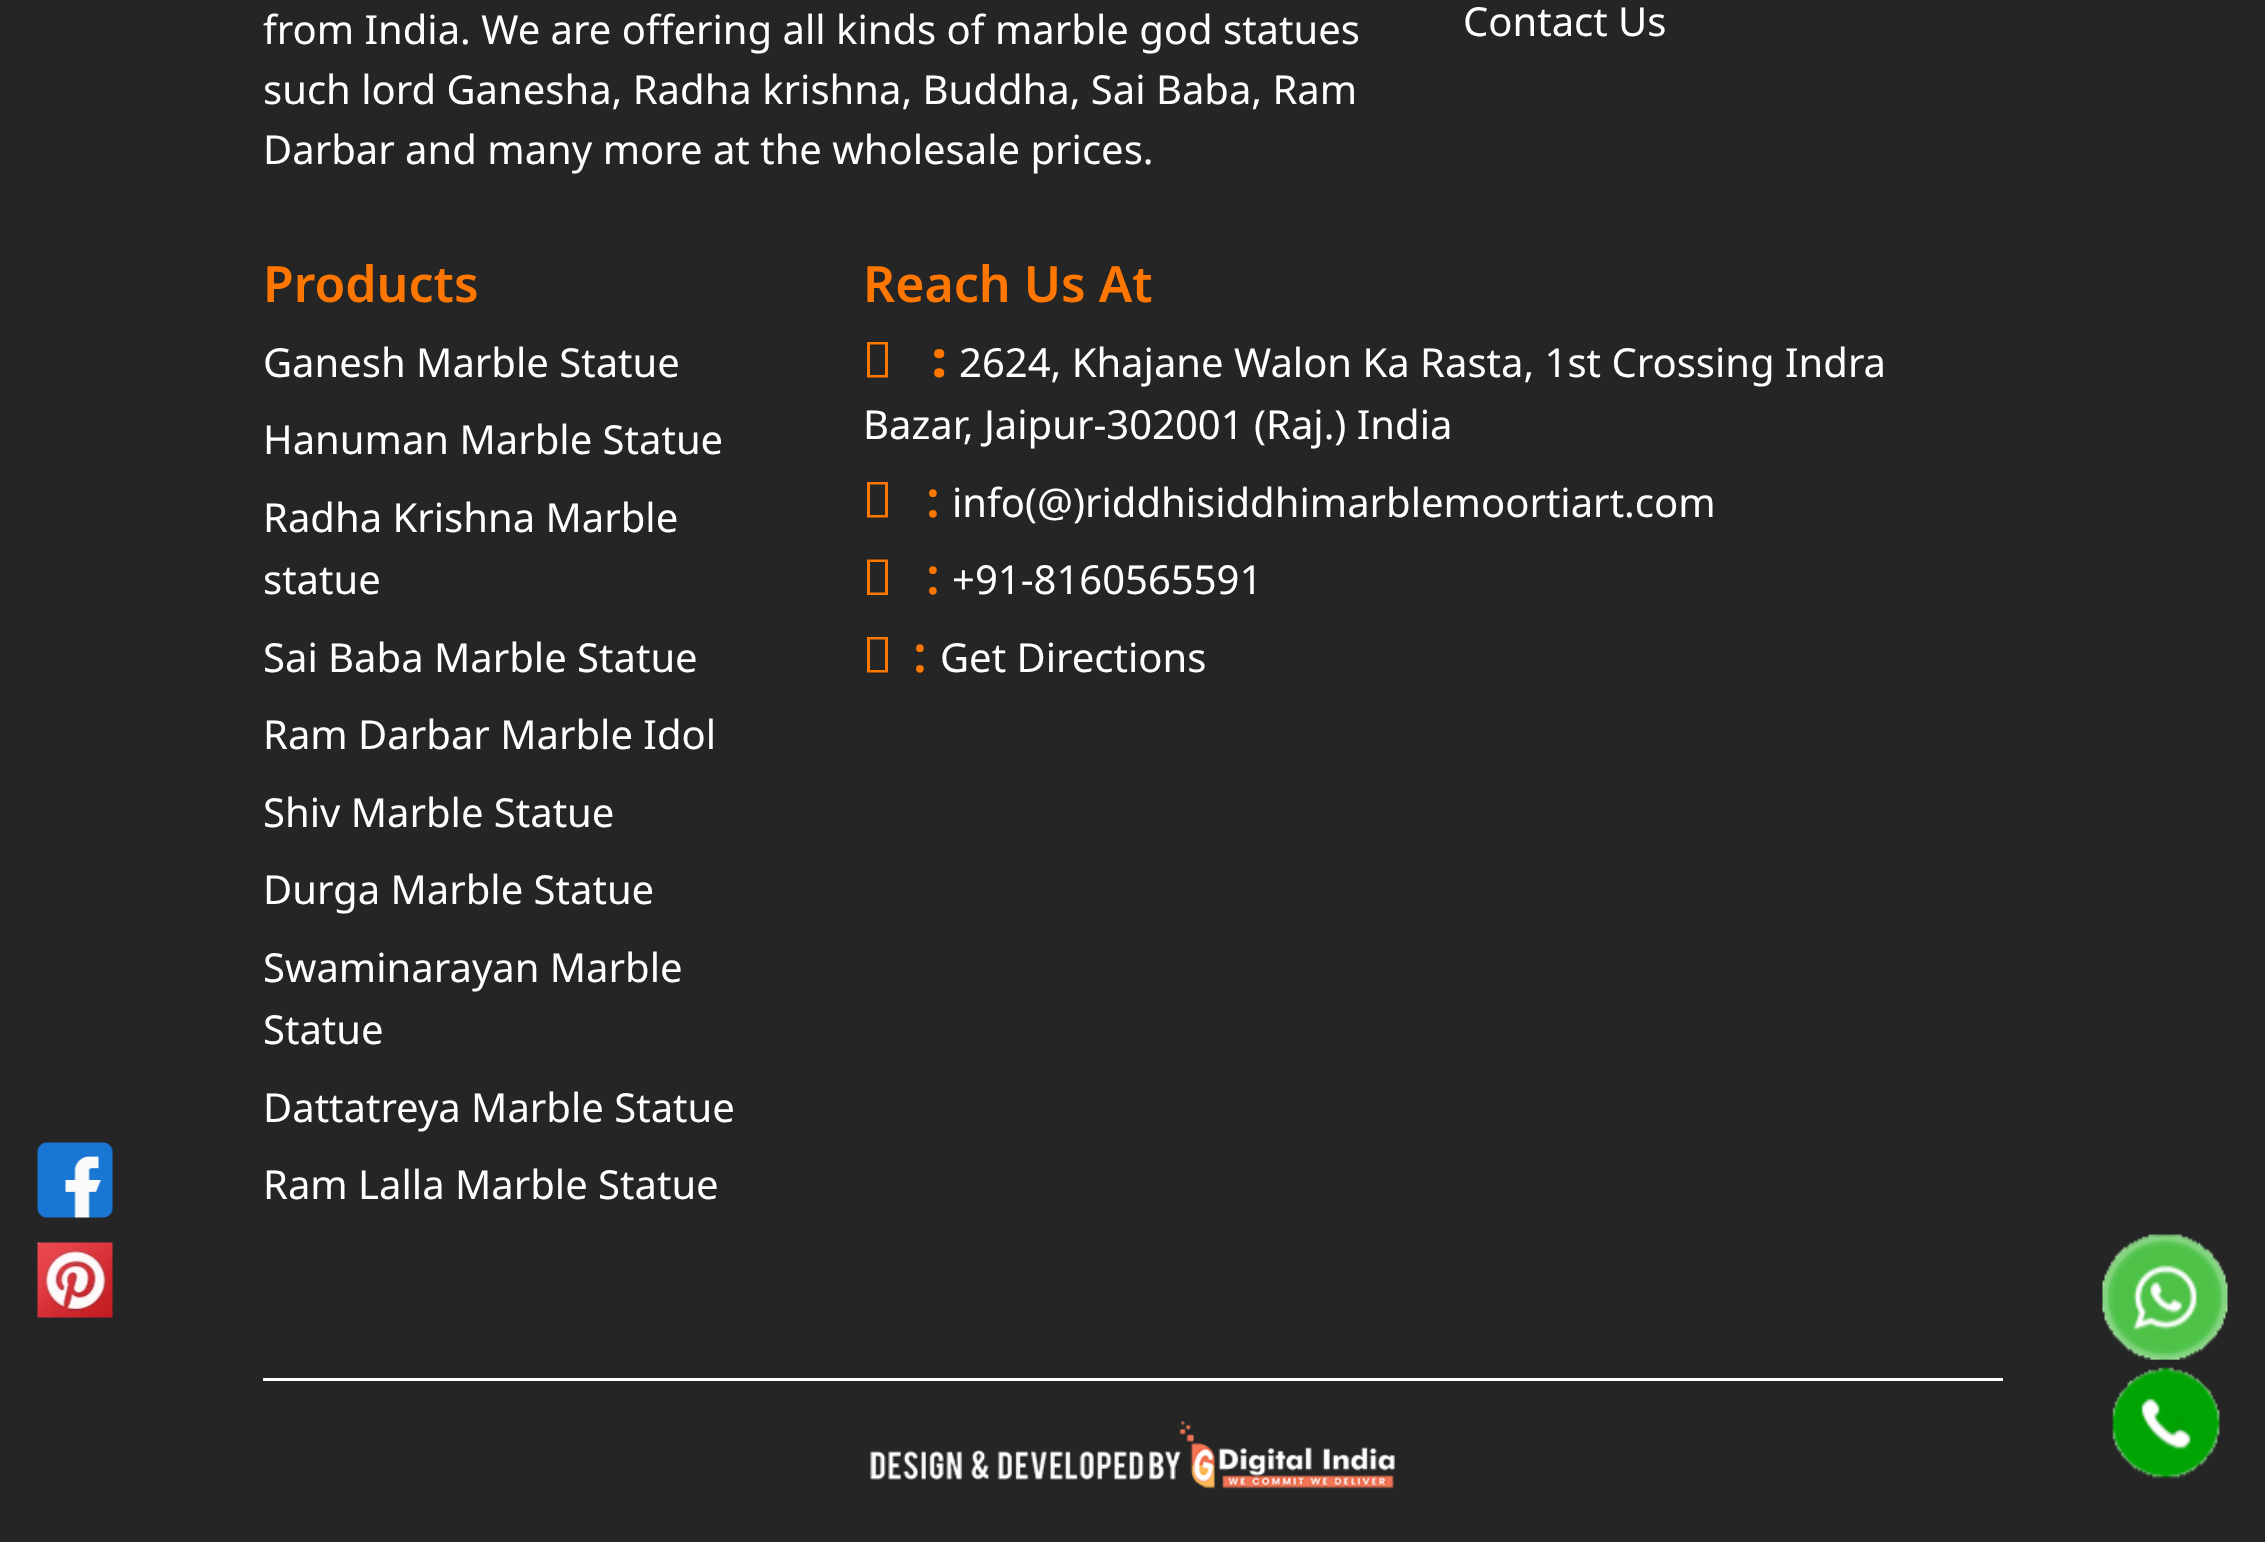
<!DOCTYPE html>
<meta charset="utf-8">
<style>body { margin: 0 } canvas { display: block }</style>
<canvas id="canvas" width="2265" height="1542"></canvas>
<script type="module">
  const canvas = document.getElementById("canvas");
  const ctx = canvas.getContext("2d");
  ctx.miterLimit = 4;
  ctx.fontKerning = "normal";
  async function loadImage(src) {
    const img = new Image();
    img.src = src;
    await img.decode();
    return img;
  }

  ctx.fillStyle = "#252525";
  ctx.fillRect(0, 0, 2265, 1542);
  ctx.font = "40px Noto Sans";
  ctx.fillStyle = "#ffffff";
  ctx.fillText("from India. We are offering all kinds of marble god statues", 263, 44);
  ctx.fillText("such lord Ganesha, Radha krishna, Buddha, Sai Baba, Ram", 263, 104);
  ctx.fillText("Darbar and many more at the wholesale prices.", 263, 164);
  ctx.fillText("Contact Us", 1463, 36);
  ctx.font = "600 50px Noto Sans";
  ctx.fillStyle = "#ff7701";
  ctx.fillText("Products", 263, 302);
  ctx.font = "40px Noto Sans";
  ctx.fillStyle = "#ffffff";
  ctx.fillText("Ganesh Marble Statue", 263, 377);
  ctx.fillText("Hanuman Marble Statue", 263, 454);
  ctx.fillText("Radha Krishna Marble", 263, 532);
  ctx.fillText("statue", 263, 594);
  ctx.fillText("Sai Baba Marble Statue", 263, 672);
  ctx.fillText("Ram Darbar Marble Idol", 263, 749);
  ctx.fillText("Shiv Marble Statue", 263, 827);
  ctx.fillText("Durga Marble Statue", 263, 904);
  ctx.fillText("Swaminarayan Marble", 263, 982);
  ctx.fillText("Statue", 263, 1044);
  ctx.fillText("Dattatreya Marble Statue", 263, 1122);
  ctx.fillText("Ram Lalla Marble Statue", 263, 1199);
  ctx.font = "600 50px Noto Sans";
  ctx.fillStyle = "#ff7701";
  ctx.fillText("Reach Us At", 863, 302);
  ctx.beginPath();
  ctx.moveTo(867, 377.5);
  ctx.lineTo(867, 342);
  ctx.lineTo(888, 342);
  ctx.lineTo(888, 377.5);
  ctx.closePath();
  ctx.moveTo(870, 375);
  ctx.lineTo(885, 375);
  ctx.lineTo(885, 344.5);
  ctx.lineTo(870, 344.5);
  ctx.closePath();
  ctx.fill();
  ctx.font = "900 50px Noto Sans";
  ctx.fillText(":", 932, 377);
  ctx.font = "40px Noto Sans";
  ctx.fillStyle = "#ffffff";
  ctx.fillText("2624, Khajane Walon Ka Rasta, 1st Crossing Indra", 959, 377);
  ctx.fillText("Bazar, Jaipur-302001 (Raj.) India", 863, 439);
  ctx.fillStyle = "#ff7701";
  ctx.beginPath();
  ctx.moveTo(867, 517.5);
  ctx.lineTo(867, 482);
  ctx.lineTo(888, 482);
  ctx.lineTo(888, 517.5);
  ctx.closePath();
  ctx.moveTo(870, 515);
  ctx.lineTo(885, 515);
  ctx.lineTo(885, 484.5);
  ctx.lineTo(870, 484.5);
  ctx.closePath();
  ctx.fill();
  ctx.font = "600 50px Noto Sans";
  ctx.fillText(":", 926, 517);
  ctx.font = "40px Noto Sans";
  ctx.fillStyle = "#ffffff";
  ctx.fillText("info(@)riddhisiddhimarblemoortiart.com", 952, 517);
  ctx.fillStyle = "#ff7701";
  ctx.beginPath();
  ctx.moveTo(867, 595);
  ctx.lineTo(867, 559.5);
  ctx.lineTo(888, 559.5);
  ctx.lineTo(888, 595);
  ctx.closePath();
  ctx.moveTo(870, 592.5);
  ctx.lineTo(885, 592.5);
  ctx.lineTo(885, 562);
  ctx.lineTo(870, 562);
  ctx.closePath();
  ctx.fill();
  ctx.font = "600 50px Noto Sans";
  ctx.fillText(":", 926, 594);
  ctx.font = "40px Noto Sans";
  ctx.fillStyle = "#ffffff";
  ctx.fillText("+91-8160565591", 952, 594);
  ctx.fillStyle = "#ff7701";
  ctx.beginPath();
  ctx.moveTo(867, 672.5);
  ctx.lineTo(867, 637);
  ctx.lineTo(888, 637);
  ctx.lineTo(888, 672.5);
  ctx.closePath();
  ctx.moveTo(870, 670);
  ctx.lineTo(885, 670);
  ctx.lineTo(885, 639.5);
  ctx.lineTo(870, 639.5);
  ctx.closePath();
  ctx.fill();
  ctx.font = "600 50px Noto Sans";
  ctx.fillText(":", 913, 672);
  ctx.font = "40px Noto Sans";
  ctx.fillStyle = "#ffffff";
  ctx.fillText("Get Directions", 940, 672);
  ctx.fillRect(263, 1378, 1740, 3);
  ctx.drawImage(await loadImage("img1.png"), 870, 1420, 525, 69);
  ctx.drawImage(await loadImage("img2.png"), 37, 1142, 76, 76);
  ctx.drawImage(await loadImage("img3.png"), 37, 1242, 76, 76);
  ctx.drawImage(await loadImage("img4.png"), 2102, 1234, 126, 126);
  ctx.drawImage(await loadImage("img5.png"), 2112, 1367, 108, 112);
</script>
